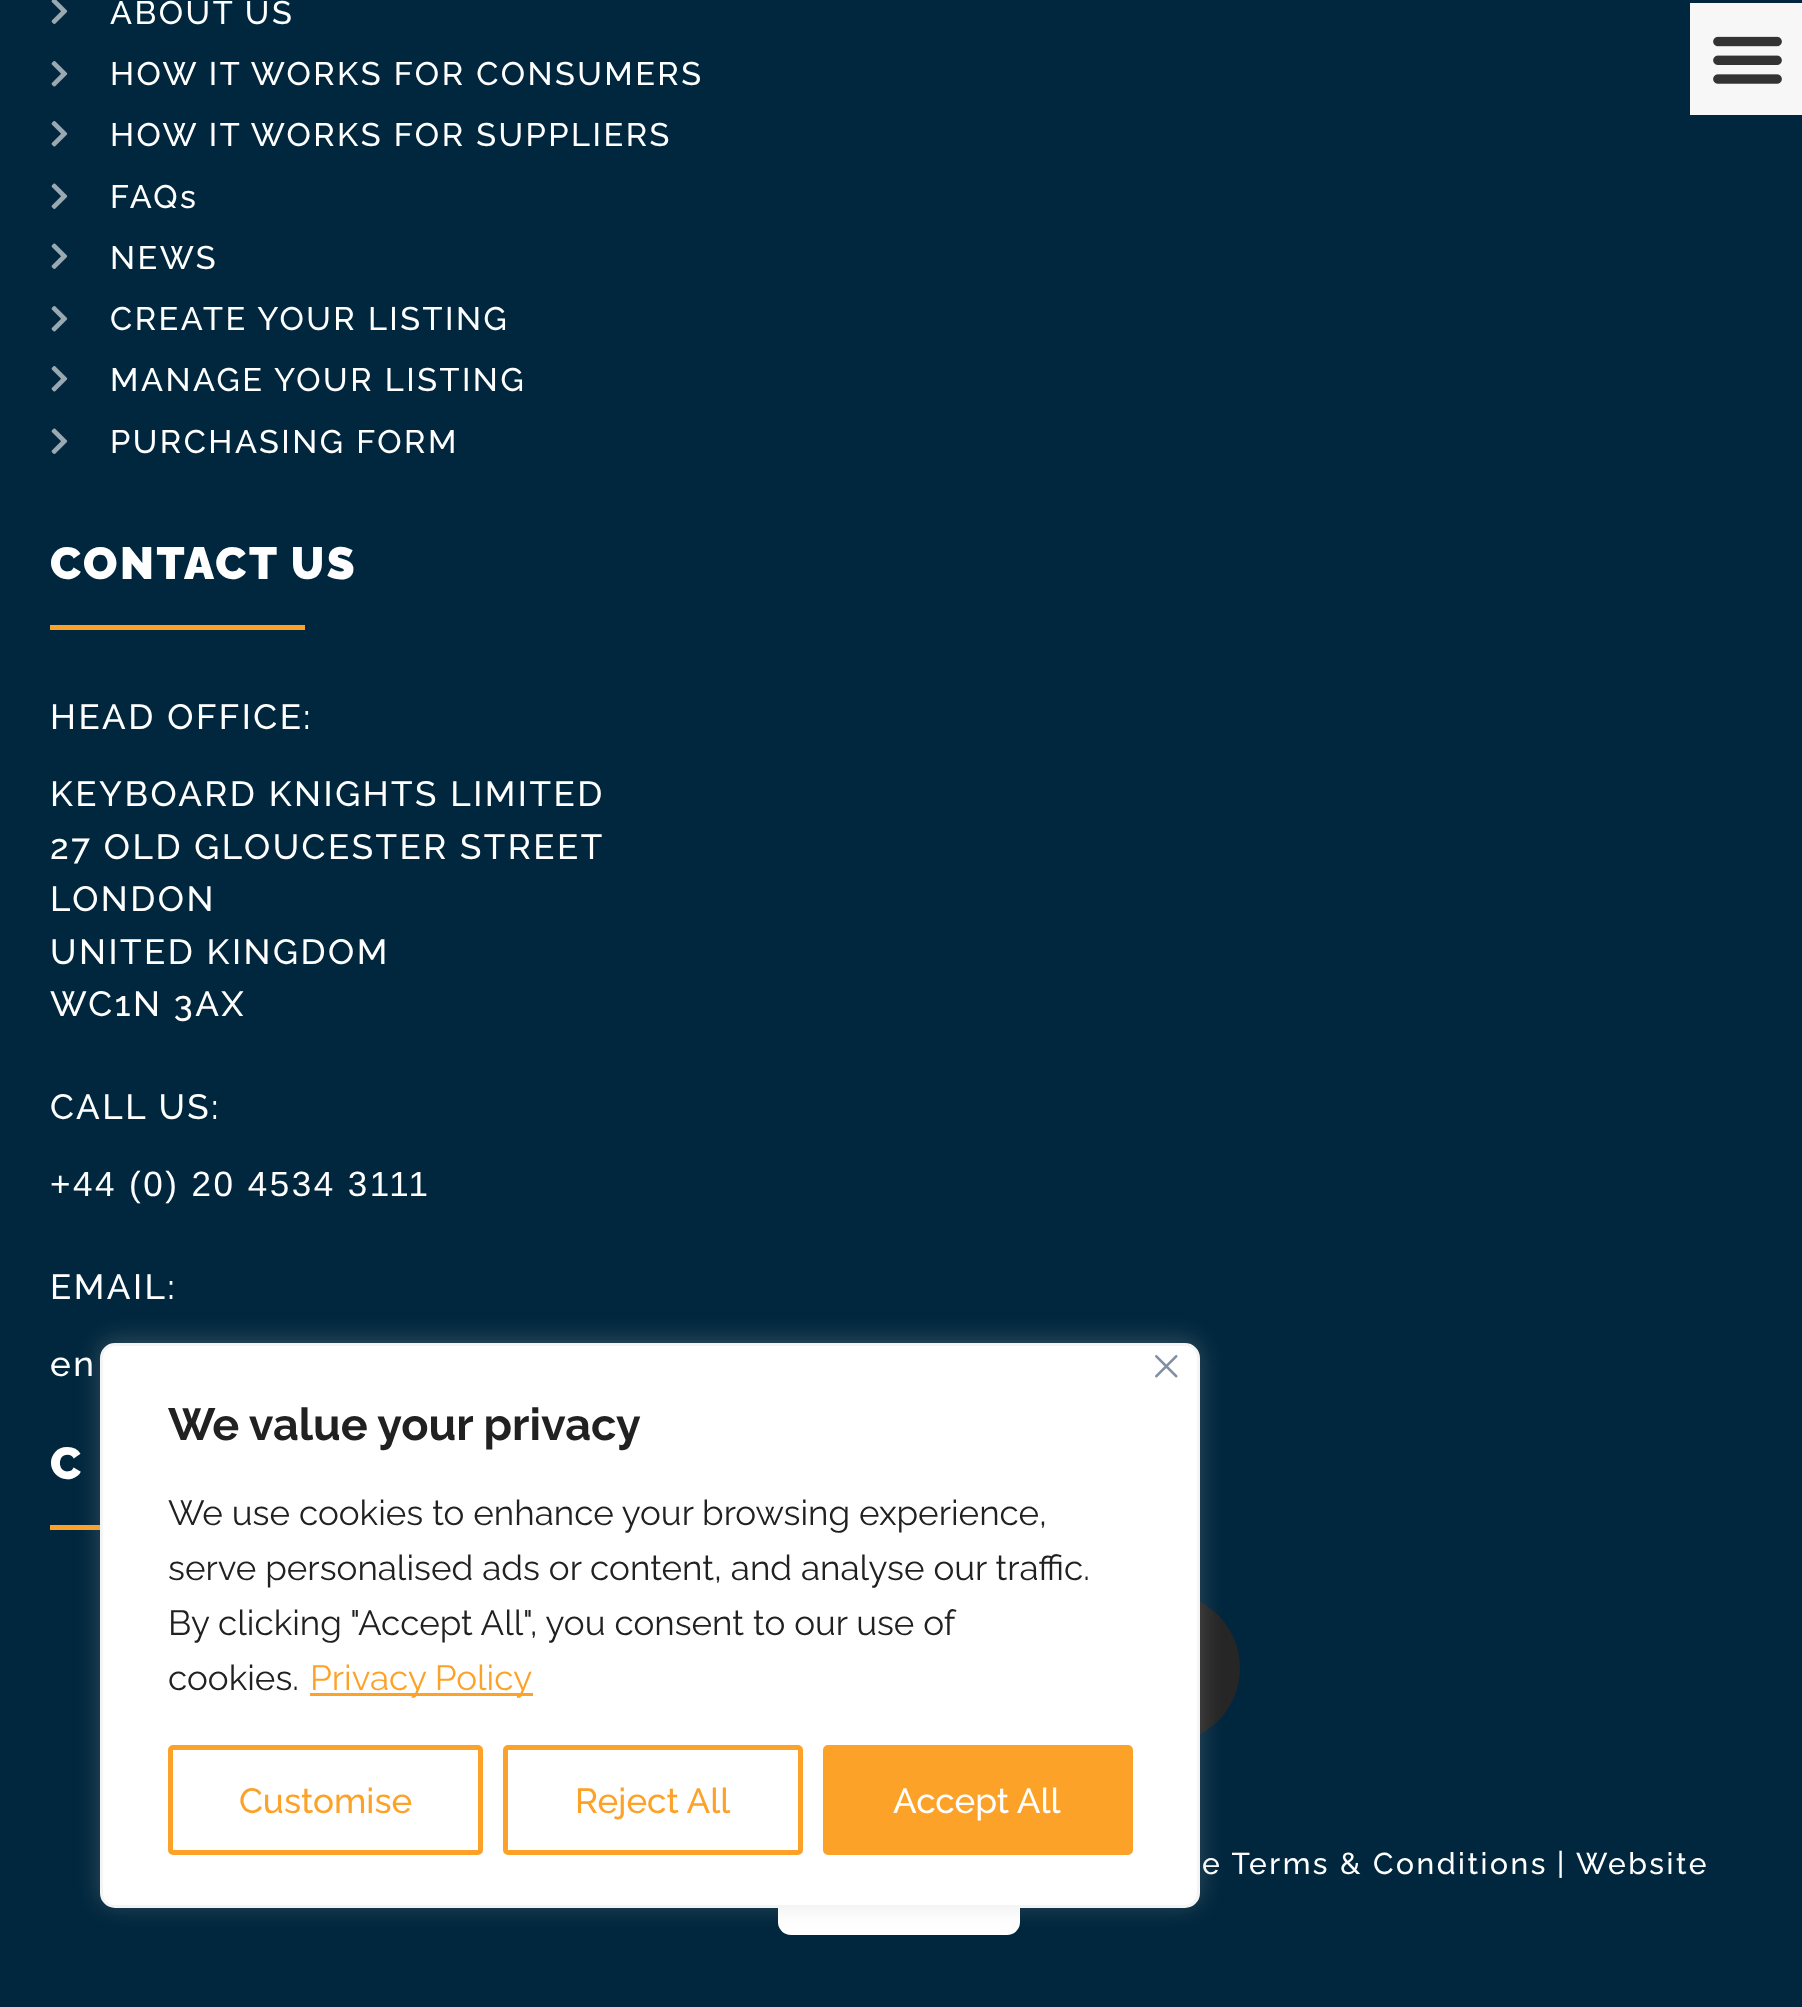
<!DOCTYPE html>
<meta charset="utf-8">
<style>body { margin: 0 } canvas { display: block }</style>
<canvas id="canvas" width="1802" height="2007"></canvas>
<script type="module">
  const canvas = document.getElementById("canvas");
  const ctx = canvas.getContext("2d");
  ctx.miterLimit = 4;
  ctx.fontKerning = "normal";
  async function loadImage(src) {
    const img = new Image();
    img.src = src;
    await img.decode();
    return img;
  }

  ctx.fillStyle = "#00273e";
  ctx.fillRect(0, 0, 1802, 2007);
  ctx.drawImage(await loadImage("img1.png"), 51, 0, 17, 24);
  ctx.letterSpacing = "2.5px";
  ctx.font = "500 32.5px Raleway";
  ctx.fillStyle = "#ffffff";
  ctx.fillText("ABOUT US", 110, 24);
  ctx.drawImage(await loadImage("img2.png"), 51, 61, 17, 26);
  ctx.fillText("HOW IT WORKS FOR CONSUMERS", 110, 85);
  ctx.drawImage(await loadImage("img2.png"), 51, 121, 17, 26);
  ctx.fillText("HOW IT WORKS FOR SUPPLIERS", 110, 146);
  ctx.drawImage(await loadImage("img3.png"), 51, 183, 17, 26);
  ctx.fillText("FAQs", 110, 208);
  ctx.drawImage(await loadImage("img3.png"), 51, 243, 17, 26);
  ctx.fillText("NEWS", 110, 269);
  ctx.drawImage(await loadImage("img2.png"), 51, 306, 17, 26);
  ctx.fillText("CREATE YOUR LISTING", 110, 330);
  ctx.drawImage(await loadImage("img2.png"), 51, 366, 17, 26);
  ctx.fillText("MANAGE YOUR LISTING", 110, 391);
  ctx.drawImage(await loadImage("img3.png"), 51, 428, 17, 26);
  ctx.fillText("PURCHASING FORM", 110, 453);
  ctx.font = "900 45px Raleway";
  ctx.fillText("CONTACT US", 50, 579);
  ctx.fillStyle = "#fda229";
  ctx.fillRect(50, 625, 255, 5);
  ctx.font = "500 35px Raleway";
  ctx.fillStyle = "#ffffff";
  ctx.fillText("HEAD OFFICE:", 50, 729);
  ctx.fillText("KEYBOARD KNIGHTS LIMITED", 50, 806);
  ctx.fillText("27 OLD GLOUCESTER STREET", 50, 859);
  ctx.fillText("LONDON", 50, 911);
  ctx.fillText("UNITED KINGDOM", 50, 964);
  ctx.fillText("WC1N 3AX", 50, 1016);
  ctx.fillText("CALL US:", 50, 1119);
  ctx.font = "35px Liberation Sans";
  ctx.fillText("+44 (0) 20 4534 3111", 50, 1196);
  ctx.font = "500 35px Raleway";
  ctx.fillText("EMAIL:", 50, 1299);
  ctx.fillText("en", 50, 1376);
  ctx.font = "900 45px Raleway";
  ctx.fillText("C", 50, 1479);
  ctx.fillStyle = "#fda229";
  ctx.fillRect(50, 1525, 50, 5);
  ctx.fillStyle = "#262626";
  ctx.beginPath();
  ctx.arc(1165, 1668, 75, 0, Math.PI * 2);
  ctx.fill();
  ctx.font = "500 30px Raleway";
  ctx.fillStyle = "#ffffff";
  ctx.fillText("e Terms & Conditions", 1202, 1874);
  ctx.fillText("|", 1557, 1874);
  ctx.fillText("Website", 1576, 1874);
  ctx.beginPath();
  ctx.roundRect(778, 1835, 242, 100, 13);
  ctx.fill();
  ctx.fillStyle = "rgba(172, 171, 171, 0.3)";
  ctx.filter = "blur(12.5px)";
  ctx.beginPath();
  ctx.roundRect(100, 1340, 1100, 565, 15);
  ctx.fill();
  ctx.filter = "none";
  ctx.fillStyle = "#ffffff";
  ctx.beginPath();
  ctx.roundRect(101.5, 1344.5, 1097, 562, 13.5);
  ctx.fill();
  ctx.strokeStyle = "#f4f4f4";
  ctx.lineWidth = 3;
  ctx.stroke();
  ctx.drawImage(await loadImage("img4.png"), 1155, 1355, 23, 23);
  ctx.letterSpacing = "0px";
  ctx.font = "bold 45px Raleway";
  ctx.fillStyle = "#212121";
  ctx.fillText("We value your privacy", 168, 1440);
  ctx.font = "35px Raleway";
  ctx.fillText("We use cookies to enhance your browsing experience,", 168, 1525);
  ctx.fillText("serve personalised ads or content, and analyse our traffic.", 168, 1580);
  ctx.fillText("By clicking \"Accept All\", you consent to our use of", 168, 1635);
  ctx.fillText("cookies.", 168, 1690);
  ctx.fillStyle = "#fda229";
  ctx.fillRect(310, 1693, 223, 3);
  ctx.fillText("Privacy Policy", 310, 1690);
  ctx.beginPath();
  ctx.roundRect(170.5, 1747.5, 310, 105, 2.5);
  ctx.strokeStyle = "#fda229";
  ctx.lineWidth = 5;
  ctx.stroke();
  ctx.font = "500 35px Raleway";
  ctx.fillText("Customise", 239, 1813);
  ctx.beginPath();
  ctx.roundRect(505.5, 1747.5, 295, 105, 2.5);
  ctx.stroke();
  ctx.fillText("Reject All", 575, 1813);
  ctx.beginPath();
  ctx.roundRect(825.5, 1747.5, 305, 105, 2.5);
  ctx.fill();
  ctx.stroke();
  ctx.fillStyle = "#ffffff";
  ctx.fillText("Accept All", 893, 1813);
  ctx.fillStyle = "#f7f7f7";
  ctx.fillRect(1690, 3, 112, 112);
  ctx.drawImage(await loadImage("img5.png"), 1713, 36, 69, 48);
</script>
